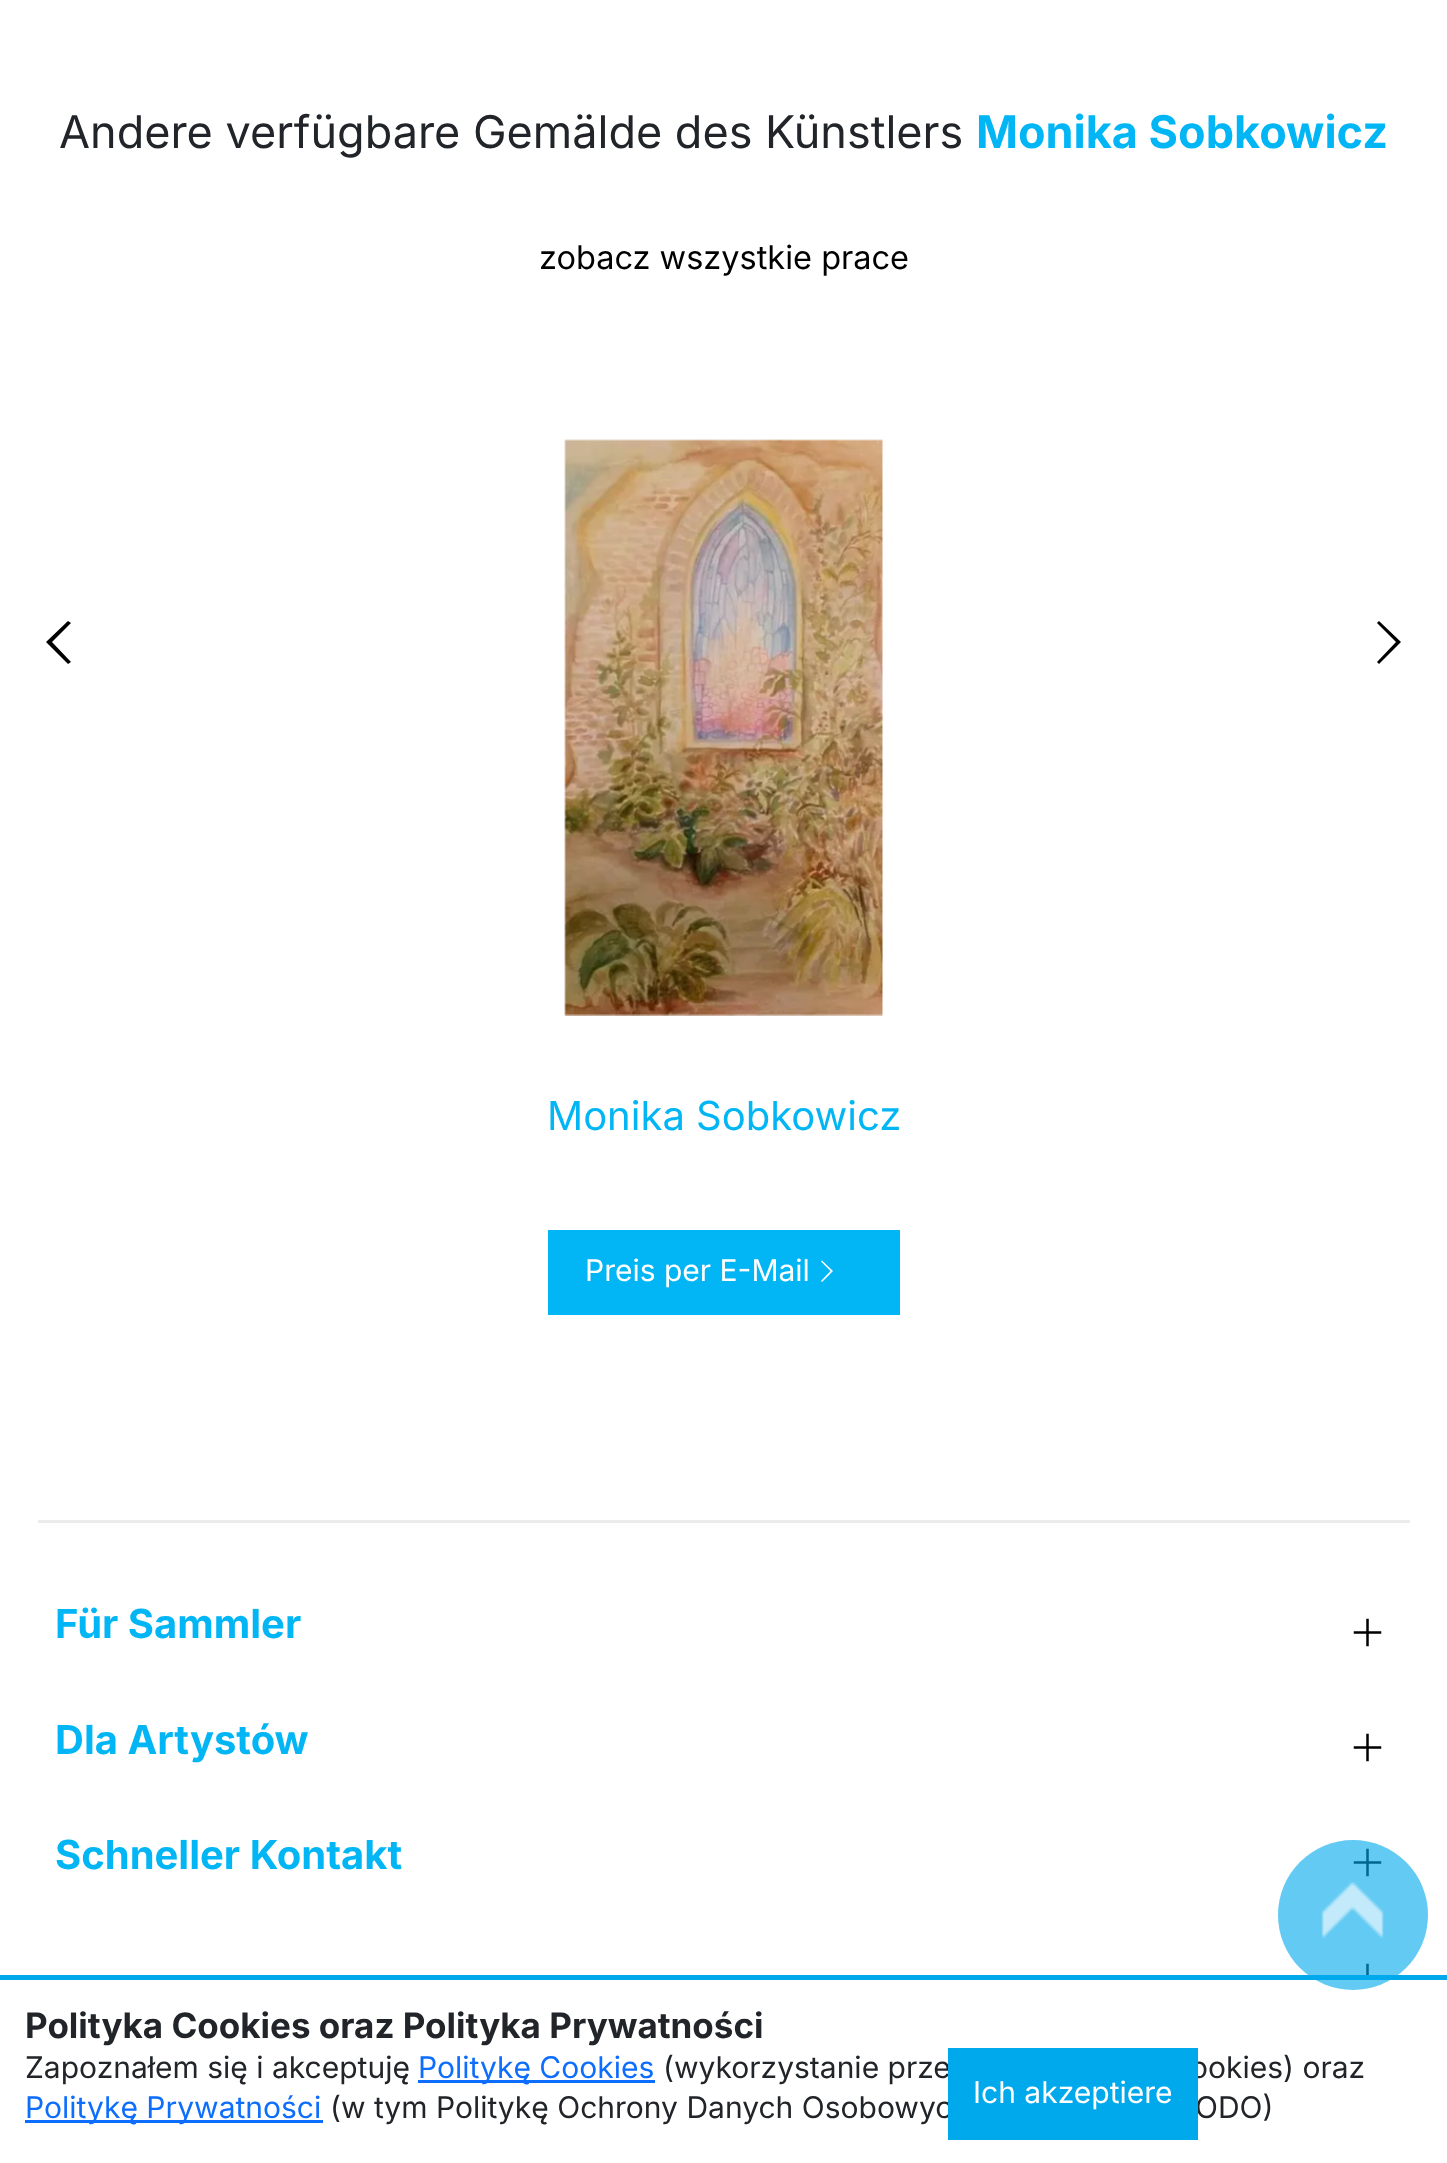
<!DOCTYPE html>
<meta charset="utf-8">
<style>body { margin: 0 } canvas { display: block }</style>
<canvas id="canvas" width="1447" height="2163"></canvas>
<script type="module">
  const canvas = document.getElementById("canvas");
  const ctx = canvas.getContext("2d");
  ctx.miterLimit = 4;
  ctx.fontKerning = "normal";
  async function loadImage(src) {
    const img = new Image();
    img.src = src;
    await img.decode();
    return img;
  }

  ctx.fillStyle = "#ffffff";
  ctx.fillRect(0, 0, 1447, 2163);
  ctx.font = "45px Inter";
  ctx.fillStyle = "#212529";
  ctx.fillText("Andere verfügbare Gemälde des Künstlers", 59, 148);
  ctx.font = "bold 45px Inter";
  ctx.fillStyle = "#02b5f4";
  ctx.fillText("Monika Sobkowicz", 976, 148);
  ctx.font = "32.5px Inter";
  ctx.fillStyle = "#000000";
  ctx.fillText("zobacz wszystkie prace", 539, 269);
  ctx.beginPath();
  ctx.moveTo(68, 621);
  ctx.lineTo(46, 642);
  ctx.lineTo(68, 664);
  ctx.lineTo(71, 662);
  ctx.lineTo(52, 642);
  ctx.lineTo(71, 623);
  ctx.closePath();
  ctx.fill();
  ctx.beginPath();
  ctx.moveTo(1379, 621);
  ctx.lineTo(1377, 623);
  ctx.lineTo(1396, 642);
  ctx.lineTo(1377, 662);
  ctx.lineTo(1379, 664);
  ctx.lineTo(1401, 642);
  ctx.closePath();
  ctx.fill();
  ctx.drawImage(await loadImage("img1.png"), 564, 439, 319, 577);
  ctx.font = "40px Inter";
  ctx.fillStyle = "#02b5f4";
  ctx.fillText("Monika Sobkowicz", 547, 1130);
  ctx.fillRect(548, 1230, 352, 85);
  ctx.font = "30px Inter";
  ctx.fillStyle = "#ffffff";
  ctx.fillText("Preis per E-Mail", 585, 1281);
  ctx.beginPath();
  ctx.moveTo(822, 1260.5);
  ctx.lineTo(821, 1261.5);
  ctx.lineTo(830.5, 1271);
  ctx.lineTo(821, 1281);
  ctx.lineTo(822, 1282);
  ctx.lineTo(833, 1271);
  ctx.closePath();
  ctx.fill();
  ctx.fillStyle = "#ebebeb";
  ctx.fillRect(38, 1520, 1372, 3);
  ctx.font = "bold 40px Inter";
  ctx.fillStyle = "#02b5f4";
  ctx.fillText("Für Sammler", 55, 1638);
  ctx.drawImage(await loadImage("img2.png"), 1353, 1618, 29, 29);
  ctx.fillText("Dla Artystów", 55, 1754);
  ctx.drawImage(await loadImage("img2.png"), 1353, 1733, 29, 29);
  ctx.fillText("Schneller Kontakt", 55, 1869);
  ctx.drawImage(await loadImage("img2.png"), 1353, 1848, 29, 29);
  ctx.drawImage(await loadImage("img3.png"), 1366, 1963, 3, 12);
  ctx.fillStyle = "#00a9ec";
  ctx.fillRect(0, 1975, 1447, 5);
  ctx.fillStyle = "rgba(0, 169, 236, 0.61)";
  ctx.beginPath();
  ctx.arc(1353, 1915, 75, 0, Math.PI * 2);
  ctx.fill();
  ctx.drawImage(await loadImage("img4.png"), 1321, 1882, 63, 57);
  ctx.font = "bold 35px Inter";
  ctx.fillStyle = "#212529";
  ctx.fillText("Polityka Cookies oraz Polityka Prywatności", 25, 2038);
  ctx.font = "30px Inter";
  ctx.fillText("Zapoznałem się i akceptuję", 25, 2078);
  ctx.fillStyle = "#0d6efd";
  ctx.fillRect(418, 2080, 237, 3);
  ctx.fillText("Politykę Cookies", 418, 2078);
  ctx.fillStyle = "#212529";
  ctx.fillText("(wykorzystanie prze", 663, 2078);
  ctx.fillText("ookies) oraz", 1190, 2078);
  ctx.fillStyle = "#0d6efd";
  ctx.fillRect(25, 2120, 298, 3);
  ctx.fillText("Politykę Prywatności", 25, 2118);
  ctx.fillStyle = "#212529";
  ctx.fillText("(w tym Politykę Ochrony Danych Osobowyc", 330, 2118);
  ctx.fillText("ODO)", 1195, 2118);
  ctx.fillStyle = "#00a9ec";
  ctx.fillRect(948, 2048, 250, 92);
  ctx.fillStyle = "#ffffff";
  ctx.fillText("Ich akzeptiere", 973, 2103);
</script>
